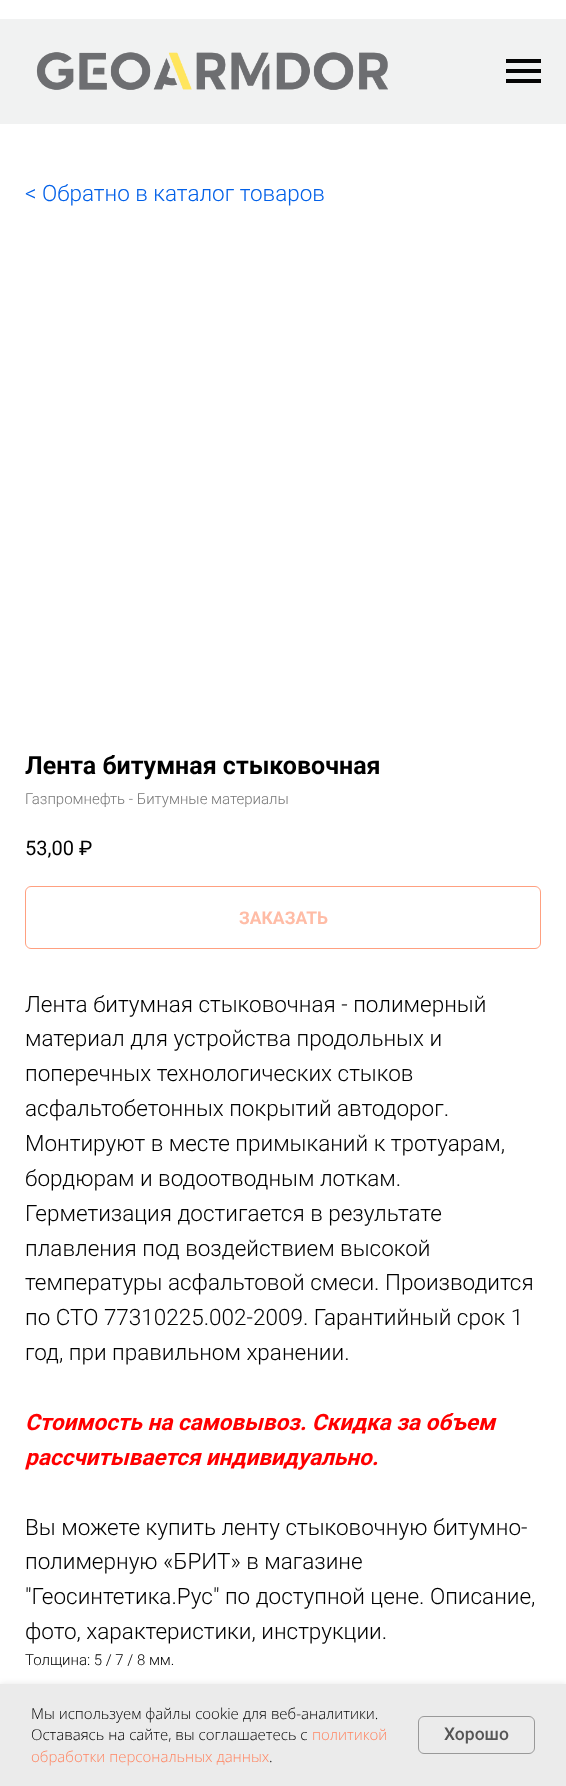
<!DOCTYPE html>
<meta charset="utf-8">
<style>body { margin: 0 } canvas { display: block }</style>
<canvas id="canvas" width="566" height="1786"></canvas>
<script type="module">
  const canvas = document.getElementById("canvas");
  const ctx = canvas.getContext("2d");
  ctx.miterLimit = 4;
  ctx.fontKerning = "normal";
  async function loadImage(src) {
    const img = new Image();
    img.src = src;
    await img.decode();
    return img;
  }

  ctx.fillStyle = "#ffffff";
  ctx.fillRect(0, 0, 566, 1786);
  ctx.fillStyle = "#f1f2f2";
  ctx.fillRect(0, 19, 566, 105);
  ctx.drawImage(await loadImage("img1.png"), 36, 52, 352, 38);
  ctx.fillStyle = "#050505";
  ctx.fillRect(506, 59, 35, 4);
  ctx.fillRect(506, 69, 35, 4);
  ctx.fillRect(506, 79, 35, 4);
  ctx.font = "300 22.5px Roboto";
  ctx.fillStyle = "#0260e8";
  ctx.fillText("< Обратно в каталог товаров", 25, 201);
  ctx.font = "bold 25px Roboto";
  ctx.fillStyle = "#000000";
  ctx.fillText("Лента битумная стыковочная", 25, 774);
  ctx.font = "300 15px Roboto";
  ctx.fillStyle = "#777777";
  ctx.fillText("Газпромнефть - Битумные материалы", 25, 804);
  ctx.font = "20px Roboto";
  ctx.fillStyle = "#000000";
  ctx.fillText("53,00", 25, 855);
  ctx.fillText("₽", 79, 855);
  ctx.beginPath();
  ctx.roundRect(25.5, 886.5, 515, 62, 5.5);
  ctx.strokeStyle = "#ffa080";
  ctx.stroke();
  ctx.font = "bold 17.5px Roboto";
  ctx.fillStyle = "#ffbca6";
  ctx.fillText("ЗАКАЗАТЬ", 239, 924);
  ctx.font = "300 22.5px Roboto";
  ctx.fillStyle = "#000000";
  ctx.fillText("Лента битумная стыковочная - полимерный", 25, 1012);
  ctx.fillText("материал для устройства продольных и", 25, 1046);
  ctx.fillText("поперечных технологических стыков", 25, 1081);
  ctx.fillText("асфальтобетонных покрытий автодорог.", 25, 1116);
  ctx.fillText("Монтируют в месте примыканий к тротуарам,", 25, 1151);
  ctx.fillText("бордюрам и водоотводным лоткам.", 25, 1186);
  ctx.fillText("Герметизация достигается в результате", 25, 1221);
  ctx.fillText("плавления под воздействием высокой", 25, 1256);
  ctx.fillText("температуры асфальтовой смеси. Производится", 25, 1290);
  ctx.fillText("по СТО 77310225.002-2009. Гарантийный срок 1", 25, 1325);
  ctx.fillText("год, при правильном хранении.", 25, 1360);
  ctx.font = "italic bold 22.5px Roboto";
  ctx.fillStyle = "#ff0000";
  ctx.fillText("Стоимость на самовывоз. Скидка за объем", 25, 1430);
  ctx.fillText("рассчитывается индивидуально.", 25, 1465);
  ctx.font = "300 22.5px Roboto";
  ctx.fillStyle = "#000000";
  ctx.fillText("Вы можете купить ленту стыковочную битумно-", 25, 1535);
  ctx.fillText("полимерную «БРИТ» в магазине", 25, 1569);
  ctx.fillText("\"Геосинтетика.Рус\" по доступной цене. Описание,", 25, 1604);
  ctx.fillText("фото, характеристики, инструкции.", 25, 1639);
  ctx.font = "300 15px Roboto";
  ctx.fillText("Толщина: 5 / 7 / 8 мм.", 25, 1665);
  ctx.fillStyle = "rgba(0, 0, 0, 0.1)";
  ctx.filter = "blur(3px)";
  ctx.beginPath();
  ctx.rect(0, 1684, 566, 102);
  ctx.fill();
  ctx.filter = "none";
  ctx.fillStyle = "#ebebeb";
  ctx.fillRect(0, 1684, 566, 102);
  ctx.font = "300 15px Open Sans";
  ctx.fillStyle = "#000000";
  ctx.fillText("Мы используем файлы cookie для веб-аналитики.", 31, 1719);
  ctx.fillText("Оставаясь на сайте, вы соглашаетесь с", 31, 1740);
  ctx.fillStyle = "#ff8562";
  ctx.fillText("политикой", 312, 1740);
  ctx.fillText("обработки персональных данных", 31, 1762);
  ctx.fillStyle = "#000000";
  ctx.fillText(".", 269, 1762);
  ctx.beginPath();
  ctx.roundRect(418.5, 1716.5, 116, 37, 5.5);
  ctx.strokeStyle = "#999999";
  ctx.stroke();
  ctx.font = "500 17.5px Roboto";
  ctx.fillStyle = "#555555";
  ctx.fillText("Хорошо", 444, 1740);
</script>
